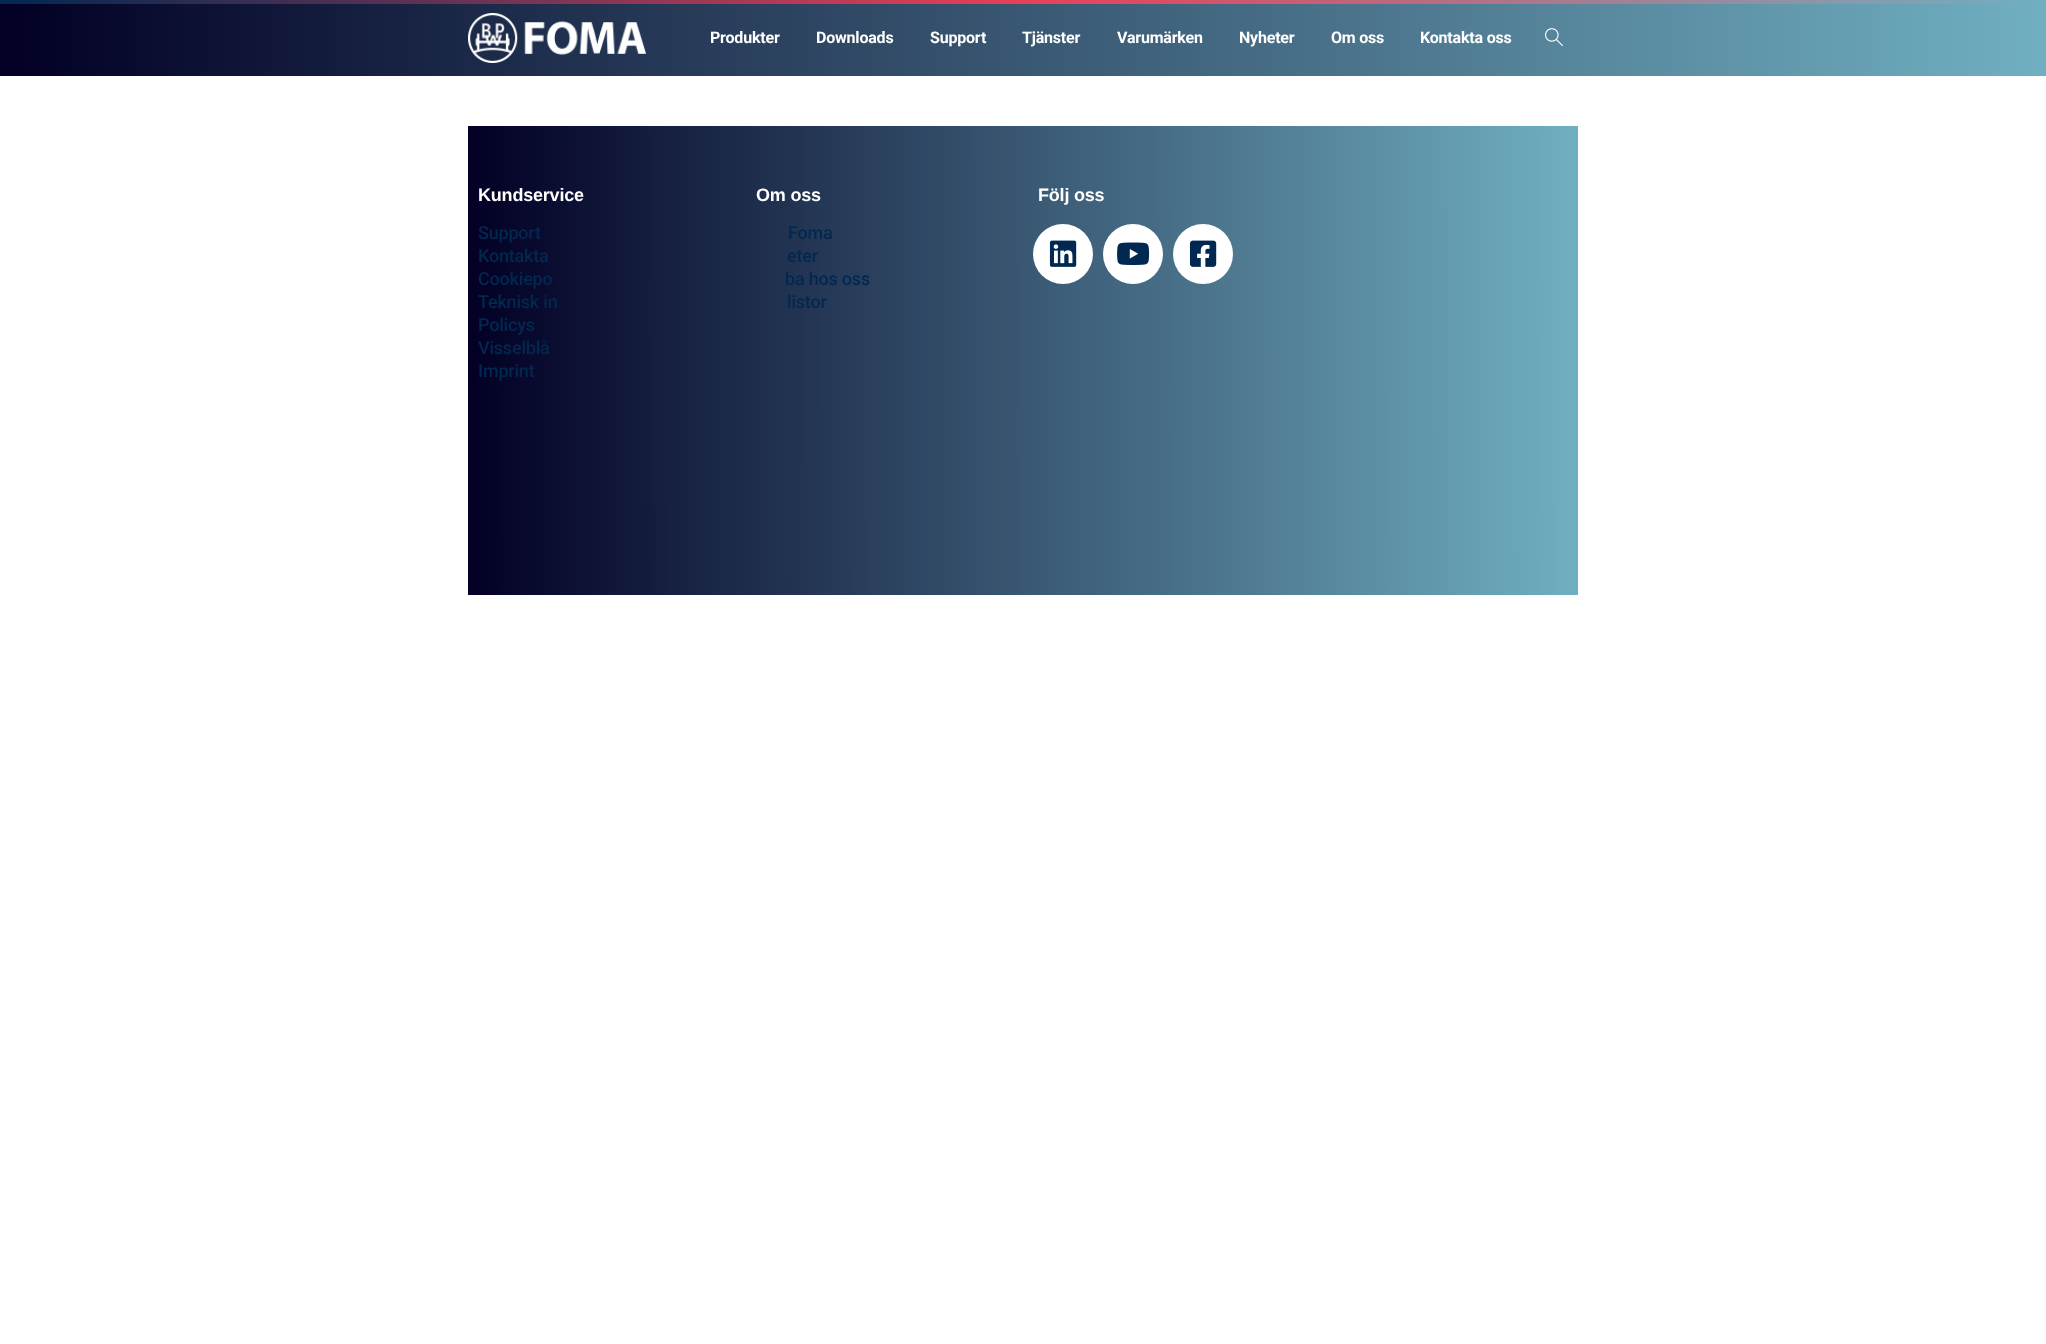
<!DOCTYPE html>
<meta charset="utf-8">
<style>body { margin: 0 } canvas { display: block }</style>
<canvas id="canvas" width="2046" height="1344"></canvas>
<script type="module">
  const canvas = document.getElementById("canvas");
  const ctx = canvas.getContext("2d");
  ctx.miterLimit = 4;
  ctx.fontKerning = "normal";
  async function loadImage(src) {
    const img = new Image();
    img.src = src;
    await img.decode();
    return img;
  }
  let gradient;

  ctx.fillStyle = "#ffffff";
  ctx.fillRect(0, 0, 2046, 1344);
  gradient = ctx.createLinearGradient(0, 2, 2046, 2);
  gradient.addColorStop(0, "#002851");
  gradient.addColorStop(0.5, "#e94057");
  gradient.addColorStop(1, "#70afc1");
  ctx.fillStyle = gradient;
  ctx.fillRect(0, 0, 2046, 4);
  gradient = ctx.createLinearGradient(0, 38, 2046, 38);
  gradient.addColorStop(0, "#020024");
  gradient.addColorStop(1, "#70afc1");
  ctx.fillStyle = gradient;
  ctx.fillRect(0, 4, 2046, 72);
  ctx.drawImage(await loadImage("img1.png"), 468, 13, 178, 50);
  ctx.letterSpacing = "-0.2px";
  ctx.font = "bold 16px Roboto";
  ctx.fillStyle = "#ffffff";
  ctx.fillText("Produkter", 710, 43);
  ctx.fillText("Downloads", 816, 43);
  ctx.fillText("Support", 930, 43);
  ctx.fillText("Tjänster", 1022, 43);
  ctx.fillText("Varumärken", 1117, 43);
  ctx.fillText("Nyheter", 1239, 43);
  ctx.fillText("Om oss", 1331, 43);
  ctx.fillText("Kontakta oss", 1420, 43);
  ctx.drawImage(await loadImage("img2.png"), 1545, 28, 18, 19);
  gradient = ctx.createLinearGradient(468, 361, 1578, 360);
  gradient.addColorStop(0, "#020024");
  gradient.addColorStop(1, "#70afc1");
  ctx.fillStyle = gradient;
  ctx.fillRect(468, 126, 1110, 469);
  ctx.font = "bold 18px Liberation Sans";
  ctx.fillStyle = "#ffffff";
  ctx.fillText("Kundservice", 478, 201);
  ctx.font = "500 18px Roboto";
  ctx.fillStyle = "#002851";
  ctx.fillText("Support", 478, 239);
  ctx.fillText("Kontakta", 478, 262);
  ctx.fillText("Cookiepo", 478, 285);
  ctx.fillText("Teknisk in", 478, 308);
  ctx.fillText("Policys", 478, 331);
  ctx.fillText("Visselblå", 478, 354);
  ctx.fillText("Imprint", 478, 377);
  ctx.font = "bold 18px Liberation Sans";
  ctx.fillStyle = "#ffffff";
  ctx.fillText("Om oss", 756, 201);
  ctx.font = "500 18px Roboto";
  ctx.fillStyle = "#002851";
  ctx.fillText("Foma", 788, 239);
  ctx.fillText("eter", 787, 262);
  ctx.fillText("ba hos oss", 785, 285);
  ctx.fillText("listor", 787, 308);
  ctx.font = "bold 18px Liberation Sans";
  ctx.fillStyle = "#ffffff";
  ctx.fillText("Följ oss", 1038, 201);
  ctx.beginPath();
  ctx.arc(1063, 254, 30, 0, Math.PI * 2);
  ctx.fill();
  ctx.drawImage(await loadImage("img3.png"), 1049, 240, 28, 27);
  ctx.beginPath();
  ctx.arc(1133, 254, 30, 0, Math.PI * 2);
  ctx.fill();
  ctx.drawImage(await loadImage("img4.png"), 1117, 242, 33, 23);
  ctx.beginPath();
  ctx.arc(1203, 254, 30, 0, Math.PI * 2);
  ctx.fill();
  ctx.drawImage(await loadImage("img5.png"), 1189, 240, 28, 27);
</script>
